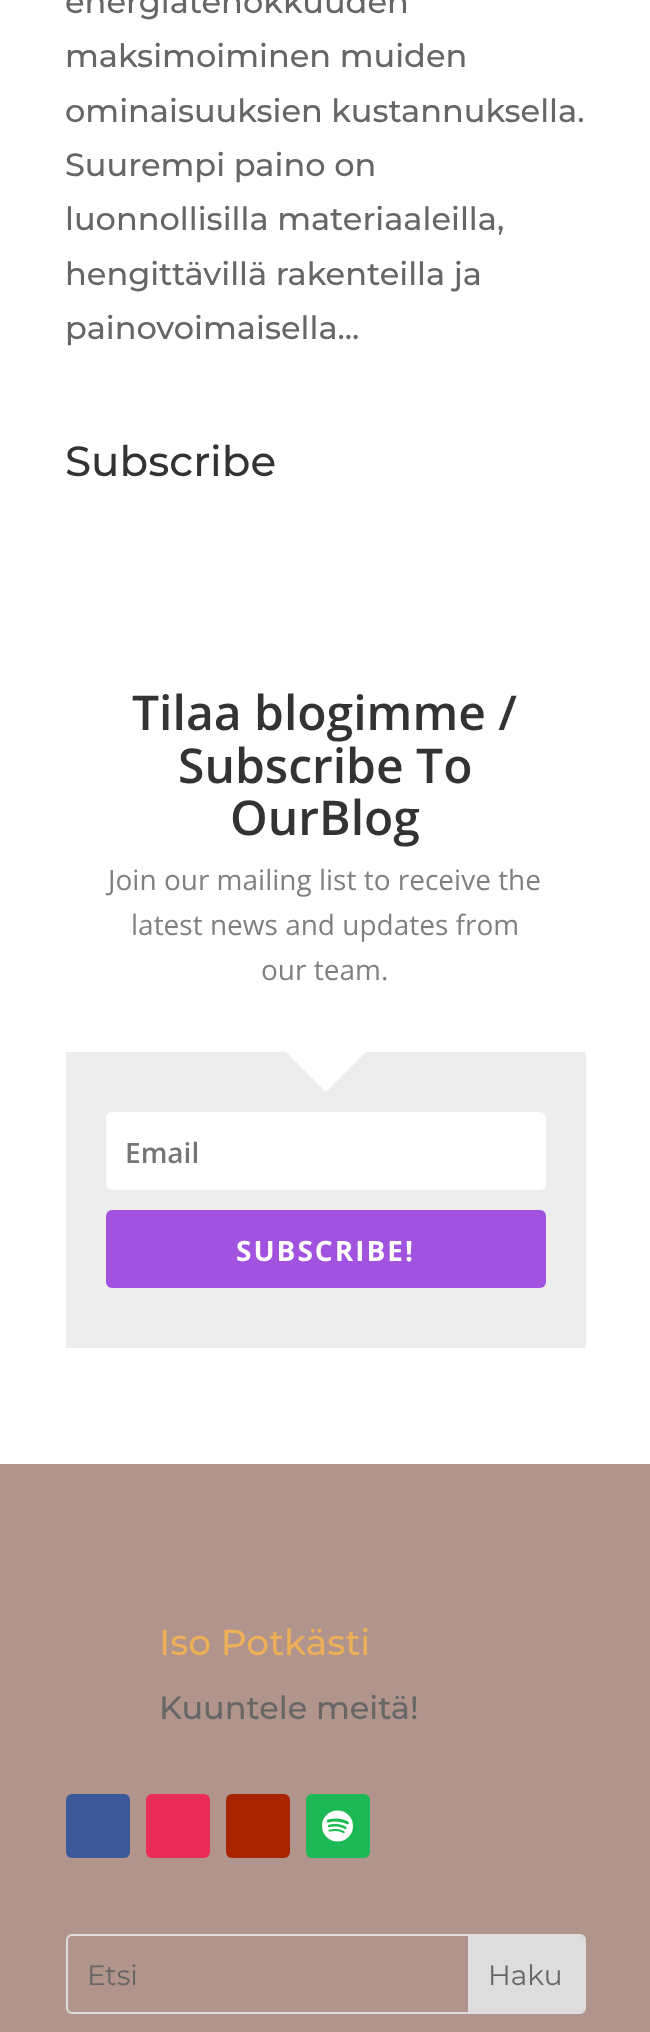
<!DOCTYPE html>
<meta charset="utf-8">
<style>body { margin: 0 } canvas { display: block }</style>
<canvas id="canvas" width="650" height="2032"></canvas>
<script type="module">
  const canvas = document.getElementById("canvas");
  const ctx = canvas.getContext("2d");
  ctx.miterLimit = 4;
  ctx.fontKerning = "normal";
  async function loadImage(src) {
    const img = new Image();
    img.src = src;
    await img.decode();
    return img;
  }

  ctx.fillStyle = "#ffffff";
  ctx.fillRect(0, 0, 650, 2032);
  ctx.font = "500 32px Montserrat";
  ctx.fillStyle = "#666666";
  ctx.fillText("energiatehokkuuden", 65, 13);
  ctx.fillText("maksimoiminen muiden", 65, 67);
  ctx.fillText("ominaisuuksien kustannuksella.", 65, 122);
  ctx.fillText("Suurempi paino on", 65, 176);
  ctx.fillText("luonnollisilla materiaaleilla,", 65, 230);
  ctx.fillText("hengittävillä rakenteilla ja", 65, 285);
  ctx.fillText("painovoimaisella...", 65, 339);
  ctx.font = "500 42px Montserrat";
  ctx.fillStyle = "#333333";
  ctx.fillText("Subscribe", 65, 476);
  ctx.font = "600 48px Open Sans";
  ctx.fillText("Tilaa blogimme /", 132, 730);
  ctx.fillText("Subscribe To", 178, 783);
  ctx.fillText("OurBlog", 230, 835);
  ctx.font = "28px Open Sans";
  ctx.fillStyle = "#808080";
  ctx.fillText("Join our mailing list to receive the", 108, 890);
  ctx.fillText("latest news and updates from", 131, 935);
  ctx.fillText("our team.", 261, 980);
  ctx.fillStyle = "#ededed";
  ctx.fillRect(66, 1052, 520, 296);
  ctx.fillStyle = "#ffffff";
  ctx.beginPath();
  ctx.moveTo(286, 1052);
  ctx.lineTo(366, 1052);
  ctx.lineTo(326, 1092);
  ctx.closePath();
  ctx.fill();
  ctx.beginPath();
  ctx.roundRect(106, 1112, 440, 78, 6);
  ctx.fill();
  ctx.font = "600 28px Open Sans";
  ctx.fillStyle = "#757575";
  ctx.fillText("Email", 125, 1163);
  ctx.fillStyle = "#a153e0";
  ctx.beginPath();
  ctx.roundRect(106, 1210, 440, 78, 6);
  ctx.fill();
  ctx.letterSpacing = "2px";
  ctx.font = "bold 28px Open Sans";
  ctx.fillStyle = "#ffffff";
  ctx.fillText("SUBSCRIBE!", 236, 1261);
  ctx.fillStyle = "#b1948b";
  ctx.fillRect(0, 1464, 650, 568);
  ctx.letterSpacing = "0px";
  ctx.font = "500 36px Montserrat";
  ctx.fillStyle = "#edb059";
  ctx.fillText("Iso Potkästi", 159, 1655);
  ctx.font = "500 32px Montserrat";
  ctx.fillStyle = "#666666";
  ctx.fillText("Kuuntele meitä!", 159, 1719);
  ctx.fillStyle = "#3b5998";
  ctx.beginPath();
  ctx.roundRect(66, 1794, 64, 64, 6);
  ctx.fill();
  ctx.fillStyle = "#ea2c59";
  ctx.beginPath();
  ctx.roundRect(146, 1794, 64, 64, 6);
  ctx.fill();
  ctx.fillStyle = "#a82400";
  ctx.beginPath();
  ctx.roundRect(226, 1794, 64, 64, 6);
  ctx.fill();
  ctx.fillStyle = "#1db954";
  ctx.beginPath();
  ctx.roundRect(306, 1794, 64, 64, 6);
  ctx.fill();
  ctx.drawImage(await loadImage("img1.png"), 322, 1810, 31, 32);
  ctx.beginPath();
  ctx.roundRect(67, 1935, 518, 78, 5);
  ctx.strokeStyle = "#dddddd";
  ctx.lineWidth = 2;
  ctx.stroke();
  ctx.font = "28px Montserrat";
  ctx.fillStyle = "#666666";
  ctx.fillText("Etsi", 87, 1985);
  ctx.fillStyle = "#dddddd";
  ctx.beginPath();
  ctx.roundRect(468, 1936, 116, 76, [0, 4, 4, 0]);
  ctx.fill();
  ctx.fillStyle = "#666666";
  ctx.fillText("Haku", 488, 1985);
</script>
